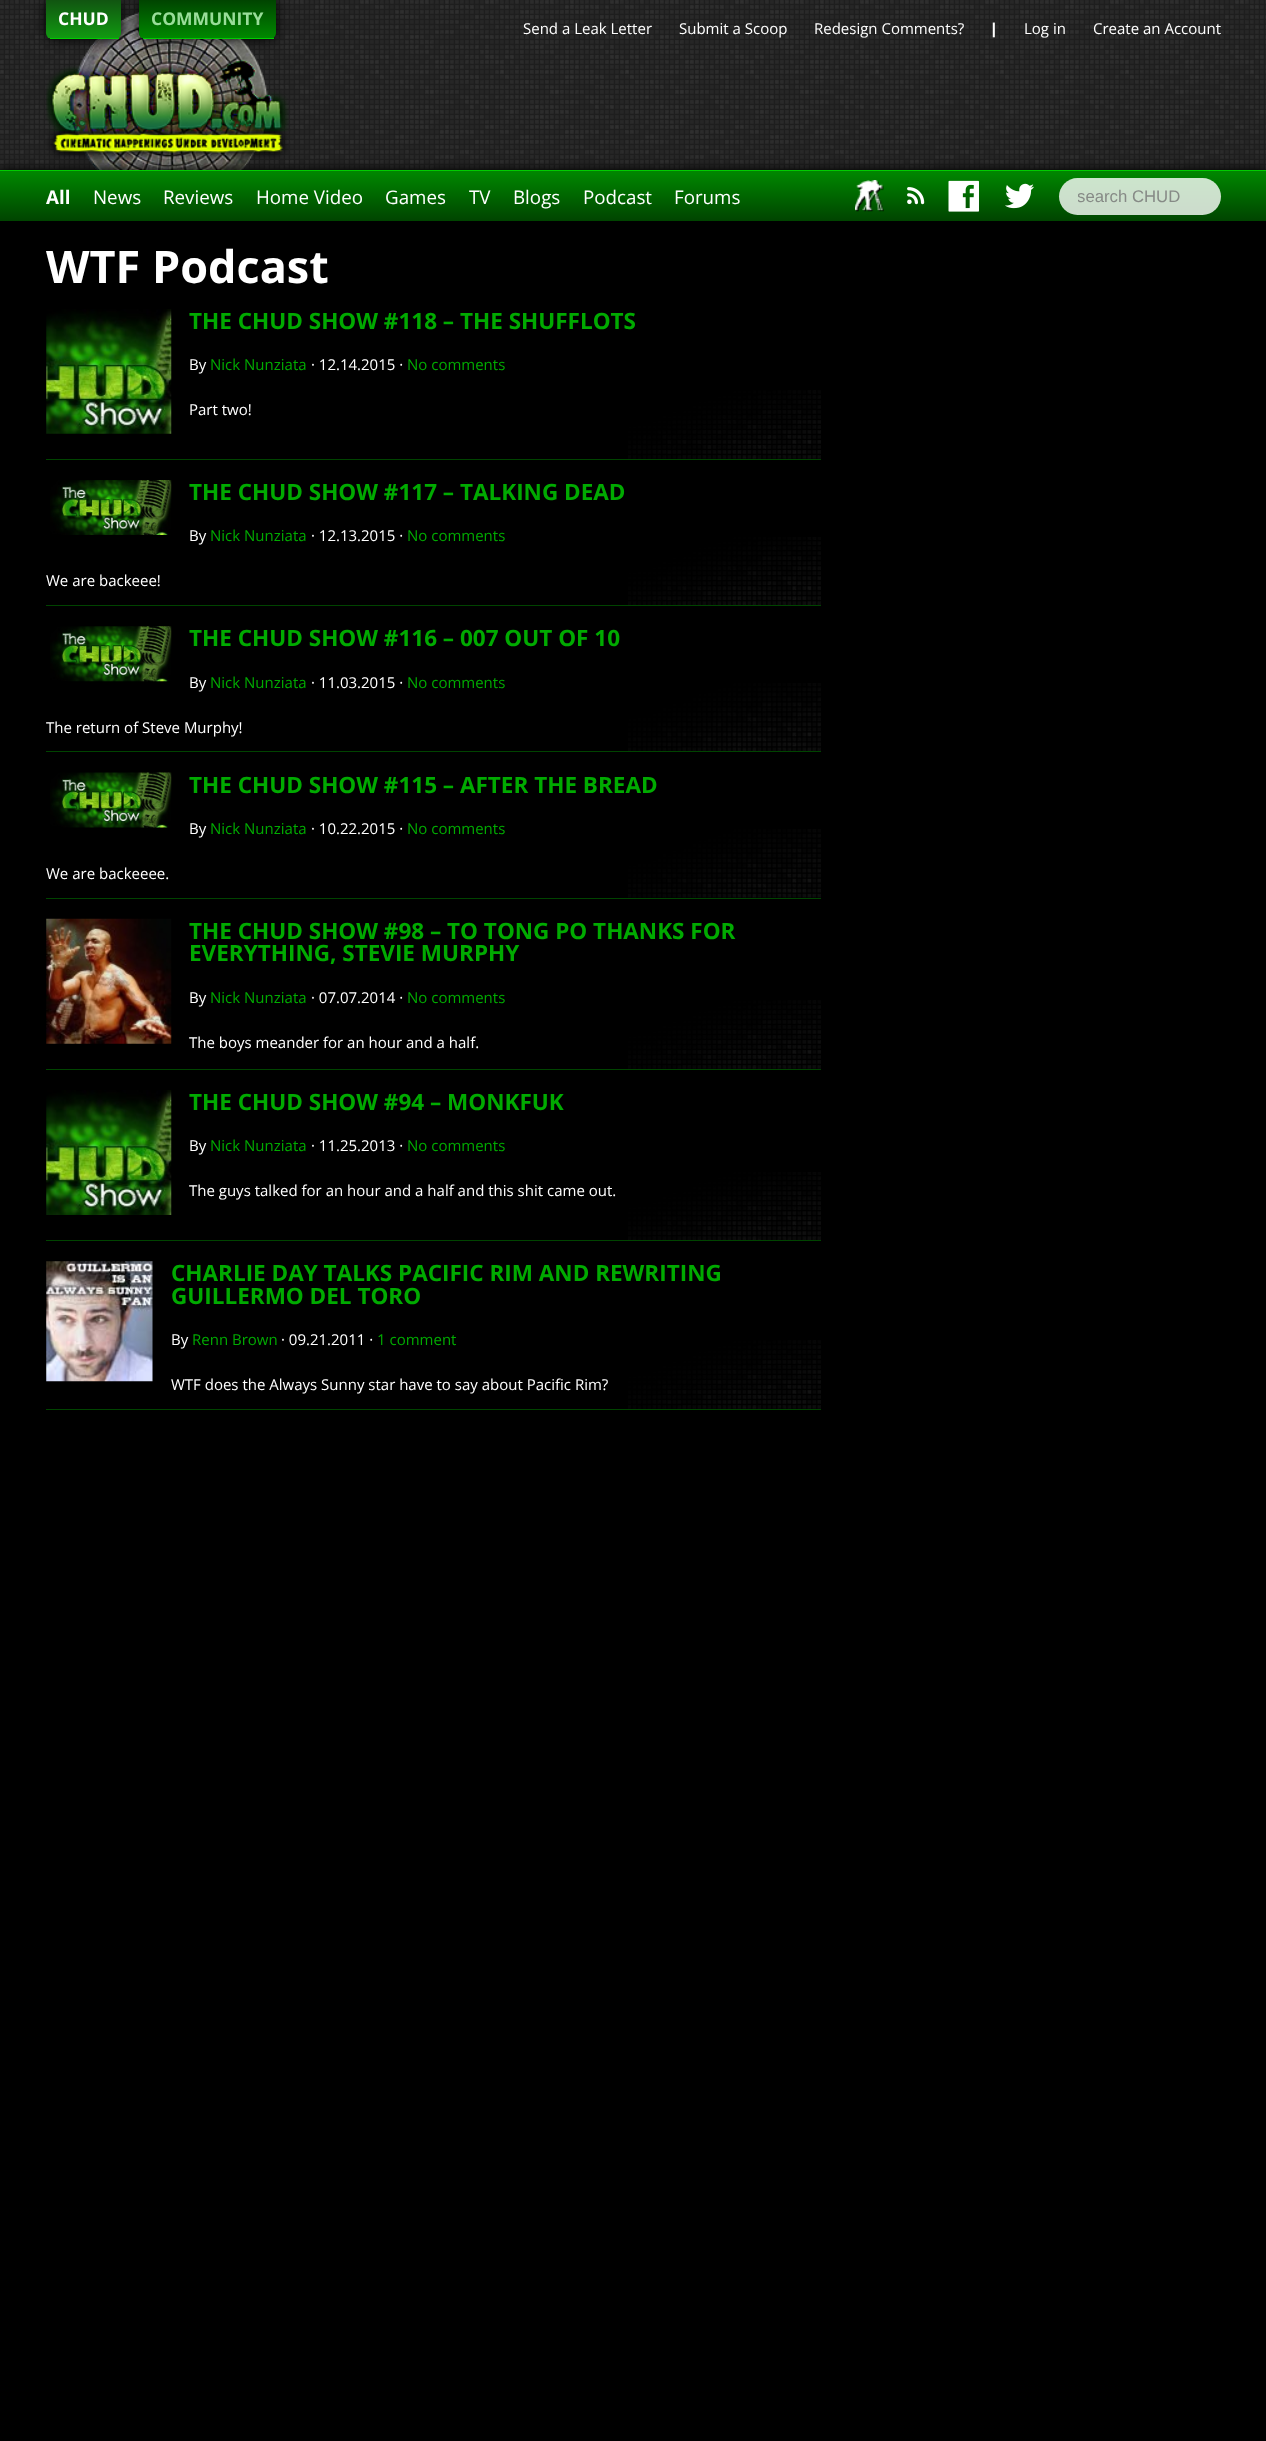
<!DOCTYPE html>
<meta charset="utf-8">
<style>body { margin: 0 } canvas { display: block }</style>
<canvas id="canvas" width="1266" height="2441"></canvas>
<script type="module">
  const canvas = document.getElementById("canvas");
  const ctx = canvas.getContext("2d");
  ctx.miterLimit = 4;
  ctx.fontKerning = "normal";
  async function loadImage(src) {
    const img = new Image();
    img.src = src;
    await img.decode();
    return img;
  }
  let gradient;

  ctx.fillStyle = "#000000";
  ctx.fillRect(0, 0, 1266, 2441);
  ctx.fillStyle = "#1e1e1e";
  ctx.fillRect(0, 169, 1266, 1);
  ctx.drawImage(await loadImage("img1.png"), 0, 0, 1266, 169);
  ctx.drawImage(await loadImage("img2.png"), 46, 12, 243, 158);
  ctx.fillStyle = "#000000";
  ctx.filter = "blur(6px)";
  ctx.beginPath();
  ctx.roundRect(46, 0, 75, 39, 6);
  ctx.fill();
  ctx.filter = "none";
  ctx.save();
  ctx.beginPath();
  ctx.roundRect(46, 0, 75, 39, [0, 0, 6, 6]);
  ctx.clip();
  gradient = ctx.createLinearGradient(46, 38, 46, 0);
  gradient.addColorStop(0, "#119911");
  gradient.addColorStop(1, "#115511");
  ctx.fillStyle = gradient;
  ctx.fillRect(46, 0, 75, 38);
  gradient = ctx.createLinearGradient(46, 75, 46, 38);
  gradient.addColorStop(0, "#119911");
  gradient.addColorStop(1, "#115511");
  ctx.fillStyle = gradient;
  ctx.fillRect(46, 38, 4, 1);
  ctx.restore();
  ctx.fillStyle = "#00cc00";
  ctx.fillRect(50, 38, 69, 1);
  ctx.font = "bold 17.5px Open Sans";
  ctx.fillStyle = "#ffffff";
  ctx.fillText("CHUD", 58, 25);
  ctx.fillStyle = "#000000";
  ctx.filter = "blur(6px)";
  ctx.beginPath();
  ctx.roundRect(139, 0, 137, 39, 6);
  ctx.fill();
  ctx.filter = "none";
  ctx.save();
  ctx.beginPath();
  ctx.roundRect(139, 0, 137, 39, [0, 0, 6, 6]);
  ctx.clip();
  gradient = ctx.createLinearGradient(139, 38, 139, 0);
  gradient.addColorStop(0, "#008800");
  gradient.addColorStop(1, "#004400");
  ctx.fillStyle = gradient;
  ctx.fillRect(139, 0, 137, 38);
  gradient = ctx.createLinearGradient(139, 75, 139, 38);
  gradient.addColorStop(0, "#008800");
  gradient.addColorStop(1, "#004400");
  ctx.fillStyle = gradient;
  ctx.fillRect(139, 38, 4, 1);
  ctx.restore();
  ctx.fillStyle = "#00cc00";
  ctx.fillRect(143, 38, 131, 1);
  ctx.fillStyle = "#99dd99";
  ctx.fillText("COMMUNITY", 151, 25);
  ctx.font = "15px Open Sans";
  ctx.fillStyle = "#ffffff";
  ctx.fillText("Send a Leak Letter", 523, 34);
  ctx.fillText("Submit a Scoop", 679, 34);
  ctx.fillText("Redesign Comments?", 814, 34);
  ctx.font = "800 15px Open Sans";
  ctx.fillText("|", 990, 34);
  ctx.font = "15px Open Sans";
  ctx.fillText("Log in", 1024, 34);
  ctx.fillText("Create an Account", 1093, 34);
  ctx.fillStyle = "#000000";
  ctx.filter = "blur(6px)";
  ctx.beginPath();
  ctx.rect(0, 170, 1266, 51);
  ctx.fill();
  ctx.filter = "none";
  gradient = ctx.createLinearGradient(0, 221, 0, 171);
  gradient.addColorStop(0, "#004400");
  gradient.addColorStop(1, "#008800");
  ctx.fillStyle = gradient;
  ctx.fillRect(0, 171, 1266, 50);
  ctx.fillStyle = "#00cc00";
  ctx.fillRect(0, 170, 1266, 1);
  ctx.font = "bold 18.75px Open Sans";
  ctx.fillStyle = "#ffffff";
  ctx.fillText("All", 46, 204);
  ctx.font = "18.75px Open Sans";
  ctx.fillText("News", 93, 204);
  ctx.fillText("Reviews", 163, 204);
  ctx.fillText("Home Video", 256, 204);
  ctx.fillText("Games", 385, 204);
  ctx.fillText("TV", 469, 204);
  ctx.fillText("Blogs", 513, 204);
  ctx.fillText("Podcast", 583, 204);
  ctx.fillText("Forums", 674, 204);
  ctx.drawImage(await loadImage("img3.png"), 855, 180, 29, 32);
  ctx.drawImage(await loadImage("img4.png"), 907, 187, 18, 18);
  ctx.drawImage(await loadImage("img5.png"), 948, 180, 31, 32);
  ctx.drawImage(await loadImage("img6.png"), 1005, 183, 29, 26);
  ctx.fillStyle = "rgba(255, 255, 255, 0.8)";
  ctx.beginPath();
  ctx.roundRect(1059, 178, 162, 37, 18.5);
  ctx.fill();
  ctx.save();
  ctx.beginPath();
  ctx.rect(1078, 188, 125, 18);
  ctx.clip();
  ctx.font = "16.75px Liberation Sans";
  ctx.fillStyle = "#868a86";
  ctx.fillText("search CHUD", 1077, 202);
  ctx.restore();
  ctx.font = "bold 45px Open Sans";
  ctx.fillStyle = "#ffffff";
  ctx.fillText("WTF Podcast", 46, 283);
  ctx.drawImage(await loadImage("img7.png"), 628, 390, 193, 69);
  ctx.fillStyle = "#004400";
  ctx.fillRect(46, 459, 775, 1);
  ctx.drawImage(await loadImage("img8.png"), 46, 309, 126, 125);
  ctx.font = "bold 22.5px Open Sans";
  ctx.fillStyle = "#00aa00";
  ctx.fillText("THE CHUD SHOW #118 – THE SHUFFLOTS", 189, 329);
  ctx.font = "15px Open Sans";
  ctx.fillStyle = "#ffffff";
  ctx.fillText("By", 189, 370);
  ctx.fillStyle = "#00aa00";
  ctx.fillText("Nick Nunziata", 210, 370);
  ctx.fillStyle = "#ffffff";
  ctx.fillText("· 12.14.2015 ·", 311, 370);
  ctx.fillStyle = "#00aa00";
  ctx.fillText("No comments", 407, 370);
  ctx.fillStyle = "#ffffff";
  ctx.fillText("Part two!", 189, 415);
  ctx.drawImage(await loadImage("img9.png"), 628, 537, 193, 68);
  ctx.fillStyle = "#004400";
  ctx.fillRect(46, 605, 775, 1);
  ctx.drawImage(await loadImage("img10.png"), 50, 480, 122, 55);
  ctx.font = "bold 22.5px Open Sans";
  ctx.fillStyle = "#00aa00";
  ctx.fillText("THE CHUD SHOW #117 – TALKING DEAD", 189, 500);
  ctx.font = "15px Open Sans";
  ctx.fillStyle = "#ffffff";
  ctx.fillText("By", 189, 541);
  ctx.fillStyle = "#00aa00";
  ctx.fillText("Nick Nunziata", 210, 541);
  ctx.fillStyle = "#ffffff";
  ctx.fillText("· 12.13.2015 ·", 311, 541);
  ctx.fillStyle = "#00aa00";
  ctx.fillText("No comments", 407, 541);
  ctx.fillStyle = "#ffffff";
  ctx.fillText("We are backeee!", 46, 586);
  ctx.drawImage(await loadImage("img11.png"), 628, 683, 193, 68);
  ctx.fillStyle = "#004400";
  ctx.fillRect(46, 751, 775, 1);
  ctx.drawImage(await loadImage("img12.png"), 50, 626, 122, 56);
  ctx.font = "bold 22.5px Open Sans";
  ctx.fillStyle = "#00aa00";
  ctx.fillText("THE CHUD SHOW #116 – 007 OUT OF 10", 189, 646);
  ctx.font = "15px Open Sans";
  ctx.fillStyle = "#ffffff";
  ctx.fillText("By", 189, 688);
  ctx.fillStyle = "#00aa00";
  ctx.fillText("Nick Nunziata", 210, 688);
  ctx.fillStyle = "#ffffff";
  ctx.fillText("· 11.03.2015 ·", 311, 688);
  ctx.fillStyle = "#00aa00";
  ctx.fillText("No comments", 407, 688);
  ctx.fillStyle = "#ffffff";
  ctx.fillText("The return of Steve Murphy!", 46, 733);
  ctx.drawImage(await loadImage("img13.png"), 628, 829, 193, 69);
  ctx.fillStyle = "#004400";
  ctx.fillRect(46, 898, 775, 1);
  ctx.drawImage(await loadImage("img14.png"), 50, 772, 122, 56);
  ctx.font = "bold 22.5px Open Sans";
  ctx.fillStyle = "#00aa00";
  ctx.fillText("THE CHUD SHOW #115 – AFTER THE BREAD", 189, 793);
  ctx.font = "15px Open Sans";
  ctx.fillStyle = "#ffffff";
  ctx.fillText("By", 189, 834);
  ctx.fillStyle = "#00aa00";
  ctx.fillText("Nick Nunziata", 210, 834);
  ctx.fillStyle = "#ffffff";
  ctx.fillText("· 10.22.2015 ·", 311, 834);
  ctx.fillStyle = "#00aa00";
  ctx.fillText("No comments", 407, 834);
  ctx.fillStyle = "#ffffff";
  ctx.fillText("We are backeeee.", 46, 879);
  ctx.drawImage(await loadImage("img7.png"), 628, 1000, 193, 69);
  ctx.fillStyle = "#004400";
  ctx.fillRect(46, 1069, 775, 1);
  ctx.drawImage(await loadImage("img15.png"), 46, 918, 126, 126);
  ctx.font = "bold 22.5px Open Sans";
  ctx.fillStyle = "#00aa00";
  ctx.fillText("THE CHUD SHOW #98 – TO TONG PO THANKS FOR", 189, 939);
  ctx.fillText("EVERYTHING, STEVIE MURPHY", 189, 961);
  ctx.font = "15px Open Sans";
  ctx.fillStyle = "#ffffff";
  ctx.fillText("By", 189, 1003);
  ctx.fillStyle = "#00aa00";
  ctx.fillText("Nick Nunziata", 210, 1003);
  ctx.fillStyle = "#ffffff";
  ctx.fillText("· 07.07.2014 ·", 311, 1003);
  ctx.fillStyle = "#00aa00";
  ctx.fillText("No comments", 407, 1003);
  ctx.fillStyle = "#ffffff";
  ctx.fillText("The boys meander for an hour and a half.", 189, 1048);
  ctx.drawImage(await loadImage("img16.png"), 628, 1172, 193, 68);
  ctx.fillStyle = "#004400";
  ctx.fillRect(46, 1240, 775, 1);
  ctx.drawImage(await loadImage("img17.png"), 46, 1090, 126, 125);
  ctx.font = "bold 22.5px Open Sans";
  ctx.fillStyle = "#00aa00";
  ctx.fillText("THE CHUD SHOW #94 – MONKFUK", 189, 1110);
  ctx.font = "15px Open Sans";
  ctx.fillStyle = "#ffffff";
  ctx.fillText("By", 189, 1151);
  ctx.fillStyle = "#00aa00";
  ctx.fillText("Nick Nunziata", 210, 1151);
  ctx.fillStyle = "#ffffff";
  ctx.fillText("· 11.25.2013 ·", 311, 1151);
  ctx.fillStyle = "#00aa00";
  ctx.fillText("No comments", 407, 1151);
  ctx.fillStyle = "#ffffff";
  ctx.fillText("The guys talked for an hour and a half and this shit came out.", 189, 1196);
  ctx.drawImage(await loadImage("img7.png"), 628, 1340, 193, 69);
  ctx.fillStyle = "#004400";
  ctx.fillRect(46, 1409, 775, 1);
  ctx.drawImage(await loadImage("img18.png"), 46, 1261, 107, 121);
  ctx.font = "bold 22.5px Open Sans";
  ctx.fillStyle = "#00aa00";
  ctx.fillText("CHARLIE DAY TALKS PACIFIC RIM AND REWRITING", 171, 1281);
  ctx.fillText("GUILLERMO DEL TORO", 171, 1304);
  ctx.font = "15px Open Sans";
  ctx.fillStyle = "#ffffff";
  ctx.fillText("By", 171, 1345);
  ctx.fillStyle = "#00aa00";
  ctx.fillText("Renn Brown", 192, 1345);
  ctx.fillStyle = "#ffffff";
  ctx.fillText("· 09.21.2011 ·", 281, 1345);
  ctx.fillStyle = "#00aa00";
  ctx.fillText("1 comment", 377, 1345);
  ctx.fillStyle = "#ffffff";
  ctx.fillText("WTF does the Always Sunny star have to say about Pacific Rim?", 171, 1390);
</script>
